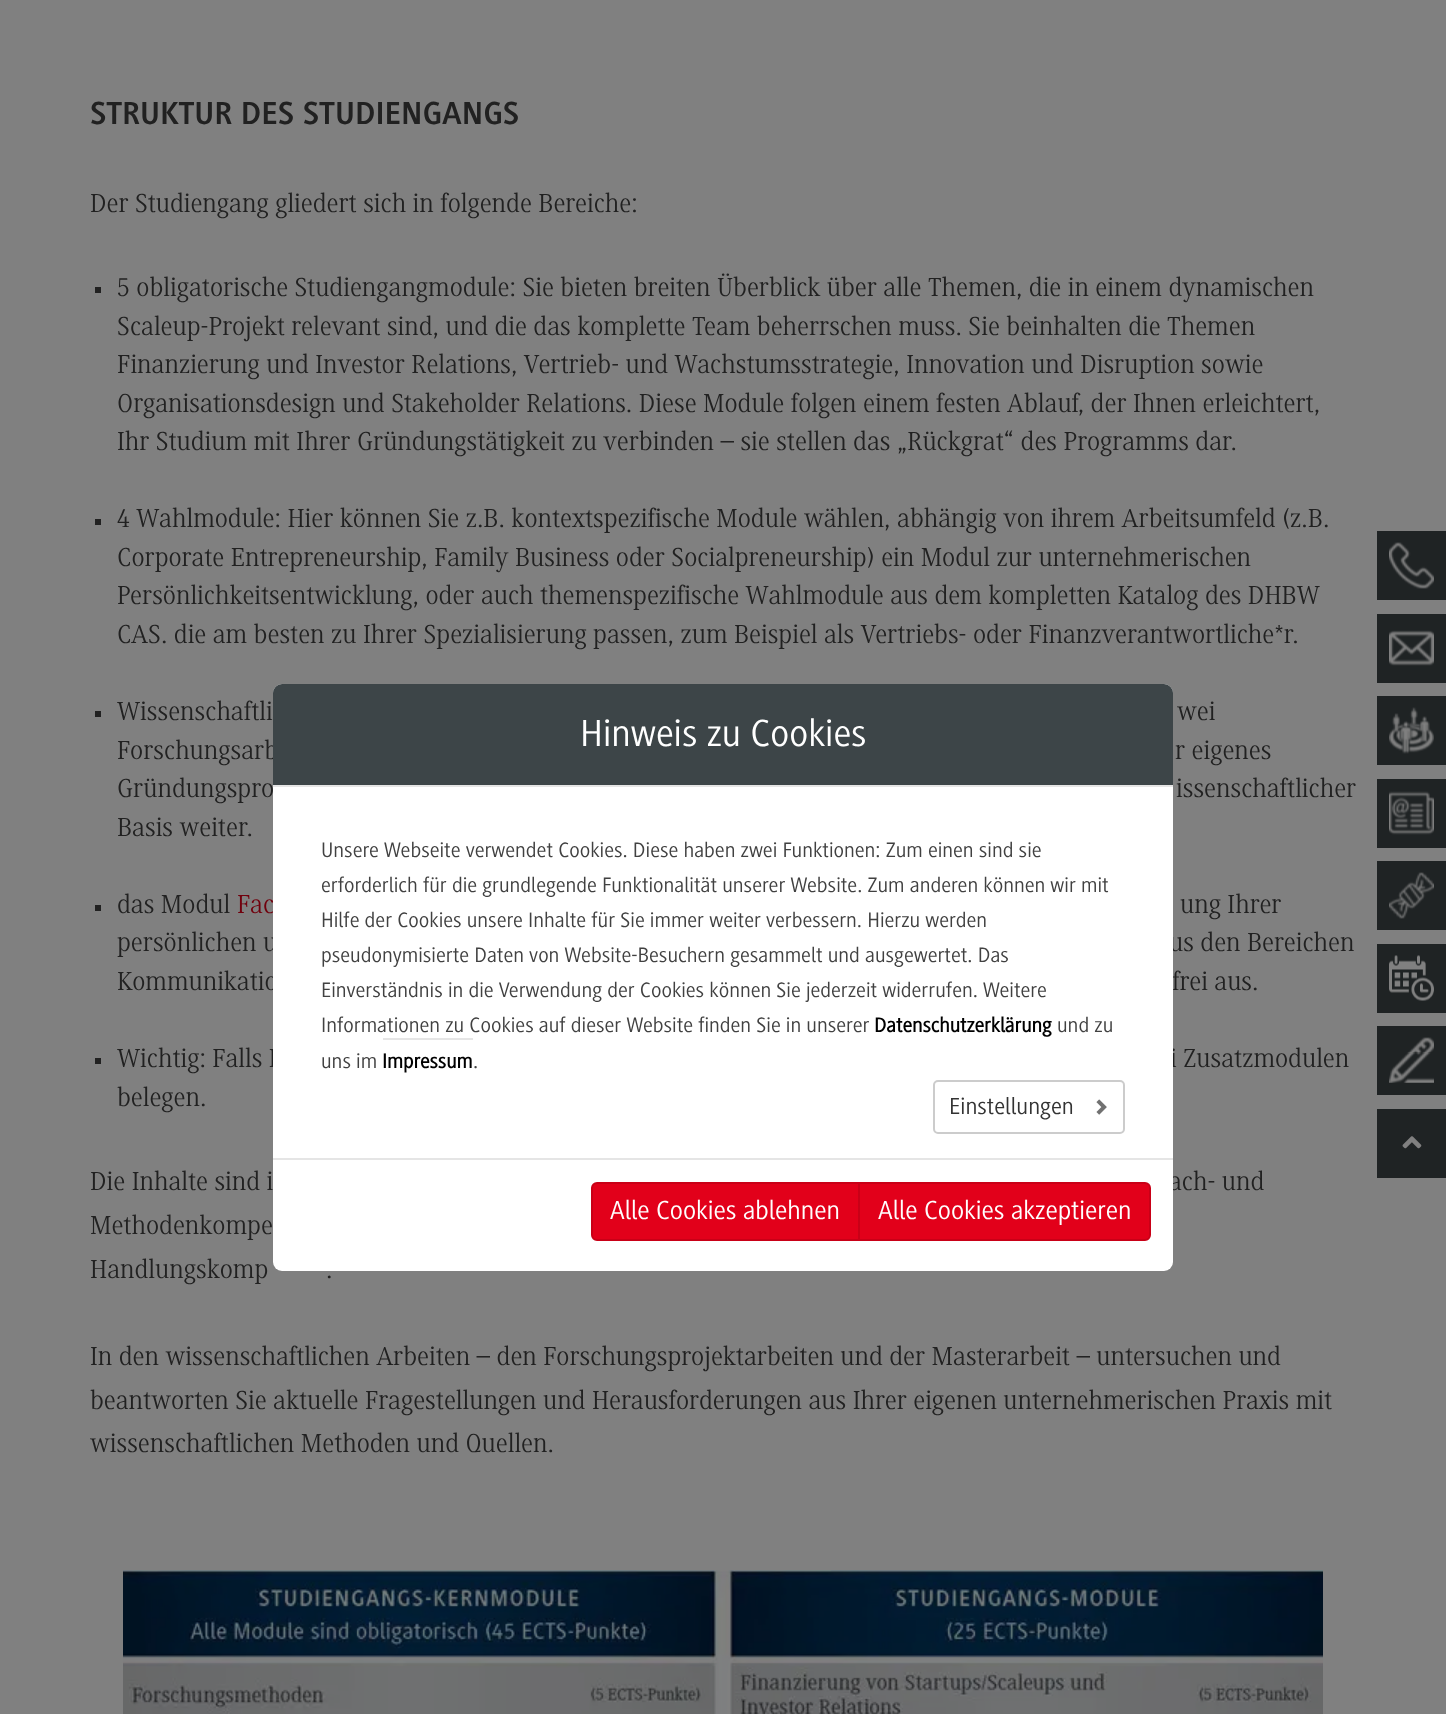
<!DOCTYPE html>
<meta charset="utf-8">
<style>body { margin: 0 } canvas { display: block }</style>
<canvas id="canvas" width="1446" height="1714"></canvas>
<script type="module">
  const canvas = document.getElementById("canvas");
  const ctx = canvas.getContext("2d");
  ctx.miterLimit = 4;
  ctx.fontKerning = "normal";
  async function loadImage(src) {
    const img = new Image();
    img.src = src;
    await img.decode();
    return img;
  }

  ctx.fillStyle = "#808080";
  ctx.fillRect(0, 0, 1446, 1714);
  ctx.font = "bold 33px 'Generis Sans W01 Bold'";
  ctx.fillStyle = "#212121";
  ctx.fillText("STRUKTUR DES STUDIENGANGS", 90, 124);
  ctx.font = "27px 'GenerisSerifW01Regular'";
  ctx.fillText("Der Studiengang gliedert sich in folgende Bereiche:", 90, 212);
  ctx.fillRect(95, 287, 6, 6);
  ctx.fillText("5 obligatorische Studiengangmodule: Sie bieten breiten Überblick über alle Themen, die in einem dynamischen", 117, 296);
  ctx.fillText("Scaleup-Projekt relevant sind, und die das komplette Team beherrschen muss. Sie beinhalten die Themen", 117, 335);
  ctx.fillText("Finanzierung und Investor Relations, Vertrieb- und Wachstumsstrategie, Innovation und Disruption sowie", 117, 373);
  ctx.fillText("Organisationsdesign und Stakeholder Relations. Diese Module folgen einem festen Ablauf, der Ihnen erleichtert,", 117, 412);
  ctx.fillText("Ihr Studium mit Ihrer Gründungstätigkeit zu verbinden – sie stellen das „Rückgrat“ des Programms dar.", 117, 450);
  ctx.fillRect(95, 519, 6, 6);
  ctx.fillText("4 Wahlmodule: Hier können Sie z.B. kontextspezifische Module wählen, abhängig von ihrem Arbeitsumfeld (z.B.", 117, 527);
  ctx.fillText("Corporate Entrepreneurship, Family Business oder Socialpreneurship) ein Modul zur unternehmerischen", 117, 566);
  ctx.fillText("Persönlichkeitsentwicklung, oder auch themenspezifische Wahlmodule aus dem kompletten Katalog des DHBW", 117, 604);
  ctx.fillText("CAS. die am besten zu Ihrer Spezialisierung passen, zum Beispiel als Vertriebs- oder Finanzverantwortliche*r.", 117, 643);
  ctx.fillRect(95, 711, 6, 6);
  ctx.fillText("Wissenschaftli", 117, 720);
  ctx.fillText("wei", 1177, 720);
  ctx.fillText("Forschungsarb", 117, 759);
  ctx.fillText("r eigenes", 1175, 759);
  ctx.fillText("Gründungspro", 117, 797);
  ctx.fillText("issenschaftlicher", 1176, 797);
  ctx.fillText("Basis weiter.", 117, 836);
  ctx.fillRect(95, 905, 6, 6);
  ctx.fillText("das Modul", 117, 913);
  ctx.fillStyle = "#71000d";
  ctx.fillText("Fac", 237, 913);
  ctx.fillStyle = "#212121";
  ctx.fillText("ung Ihrer", 1180, 913);
  ctx.fillText("persönlichen u", 117, 951);
  ctx.fillText("us den Bereichen", 1169, 951);
  ctx.fillText("Kommunikatio", 117, 990);
  ctx.fillText("frei aus.", 1172, 990);
  ctx.fillRect(95, 1058, 6, 6);
  ctx.fillText("Wichtig: Falls I", 117, 1067);
  ctx.fillText("i Zusatzmodulen", 1170, 1067);
  ctx.fillText("belegen.", 117, 1106);
  ctx.fillText("Die Inhalte sind i", 90, 1190);
  ctx.fillText("ach- und", 1169, 1190);
  ctx.fillText("Methodenkompe", 90, 1234);
  ctx.fillText("Handlungskomp", 90, 1278);
  ctx.fillText(".", 326, 1278);
  ctx.fillText("In den wissenschaftlichen Arbeiten – den Forschungsprojektarbeiten und der Masterarbeit – untersuchen und", 90, 1365);
  ctx.fillText("beantworten Sie aktuelle Fragestellungen und Herausforderungen aus Ihrer eigenen unternehmerischen Praxis mit", 90, 1409);
  ctx.fillText("wissenschaftlichen Methoden und Quellen.", 90, 1452);
  ctx.drawImage(await loadImage("img1.png"), 123, 1570, 1200, 144);
  ctx.fillStyle = "#1f2324";
  ctx.fillRect(1377, 531, 69, 69);
  ctx.drawImage(await loadImage("img2.png"), 1389, 542, 45, 47);
  ctx.fillRect(1377, 614, 69, 69);
  ctx.drawImage(await loadImage("img3.png"), 1389, 630, 45, 36);
  ctx.fillRect(1377, 696, 69, 69);
  ctx.drawImage(await loadImage("img4.png"), 1389, 707, 45, 47);
  ctx.fillRect(1377, 779, 69, 69);
  ctx.drawImage(await loadImage("img5.png"), 1389, 791, 45, 44);
  ctx.fillRect(1377, 861, 69, 69);
  ctx.drawImage(await loadImage("img6.png"), 1389, 872, 45, 47);
  ctx.fillRect(1377, 944, 69, 69);
  ctx.drawImage(await loadImage("img7.png"), 1389, 955, 45, 46);
  ctx.fillRect(1377, 1026, 69, 69);
  ctx.drawImage(await loadImage("img8.png"), 1389, 1037, 45, 46);
  ctx.fillRect(1377, 1109, 69, 69);
  ctx.drawImage(await loadImage("img9.png"), 1402, 1136, 20, 13);
  ctx.fillStyle = "#ffffff";
  ctx.beginPath();
  ctx.roundRect(273, 684, 900, 587, 9);
  ctx.fill();
  ctx.fillStyle = "#3d4548";
  ctx.beginPath();
  ctx.roundRect(273, 684, 900, 102, [9, 9, 0, 0]);
  ctx.fill();
  ctx.fillStyle = "#e5e5e5";
  ctx.fillRect(273, 785, 900, 2);
  ctx.font = "39px 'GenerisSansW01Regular'";
  ctx.fillStyle = "#ffffff";
  ctx.fillText("Hinweis zu Cookies", 580, 746);
  ctx.font = "21.6px 'GenerisSansW01Regular'";
  ctx.fillStyle = "#414141";
  ctx.fillText("Unsere Webseite verwendet Cookies. Diese haben zwei Funktionen: Zum einen sind sie", 321, 857);
  ctx.fillText("erforderlich für die grundlegende Funktionalität unserer Website. Zum anderen können wir mit", 321, 892);
  ctx.fillText("Hilfe der Cookies unsere Inhalte für Sie immer weiter verbessern. Hierzu werden", 321, 927);
  ctx.fillText("pseudonymisierte Daten von Website-Besuchern gesammelt und ausgewertet. Das", 321, 962);
  ctx.fillText("Einverständnis in die Verwendung der Cookies können Sie jederzeit widerrufen. Weitere", 321, 997);
  ctx.fillText("Informationen zu Cookies auf dieser Website finden Sie in unserer", 321, 1032);
  ctx.font = "bold 21px 'GenerisSansW01Regular'";
  ctx.fillStyle = "#000000";
  ctx.fillText("Datenschutzerklärung", 874, 1032);
  ctx.font = "21.6px 'GenerisSansW01Regular'";
  ctx.fillStyle = "#414141";
  ctx.fillText("und zu", 1057, 1032);
  ctx.fillText("uns im", 321, 1068);
  ctx.font = "bold 21px 'GenerisSansW01Regular'";
  ctx.fillStyle = "#000000";
  ctx.fillText("Impressum", 382, 1068);
  ctx.fillStyle = "#e5e5e5";
  ctx.fillRect(383, 1038, 90, 2);
  ctx.font = "21.6px 'GenerisSansW01Regular'";
  ctx.fillStyle = "#414141";
  ctx.fillText(".", 473, 1068);
  ctx.beginPath();
  ctx.roundRect(934, 1081, 190, 52, 4);
  ctx.strokeStyle = "#cccccc";
  ctx.lineWidth = 2;
  ctx.stroke();
  ctx.font = "24px 'GenerisSansW01Regular'";
  ctx.fillStyle = "#333333";
  ctx.fillText("Einstellungen", 949, 1114);
  ctx.drawImage(await loadImage("img10.png"), 1096, 1099, 11, 16);
  ctx.fillStyle = "#e5e5e5";
  ctx.fillRect(273, 1158, 900, 2);
  ctx.fillStyle = "#e2001a";
  ctx.beginPath();
  ctx.roundRect(592, 1183, 267, 57, [5, 0, 0, 5]);
  ctx.fill();
  ctx.strokeStyle = "#c90017";
  ctx.stroke();
  ctx.font = "27px 'GenerisSansW01Regular'";
  ctx.fillStyle = "#ffffff";
  ctx.fillText("Alle Cookies ablehnen", 610, 1219);
  ctx.fillStyle = "#e2001a";
  ctx.beginPath();
  ctx.roundRect(859, 1183, 291, 57, [0, 5, 5, 0]);
  ctx.fill();
  ctx.stroke();
  ctx.fillStyle = "#ffffff";
  ctx.fillText("Alle Cookies akzeptieren", 878, 1219);
</script>
